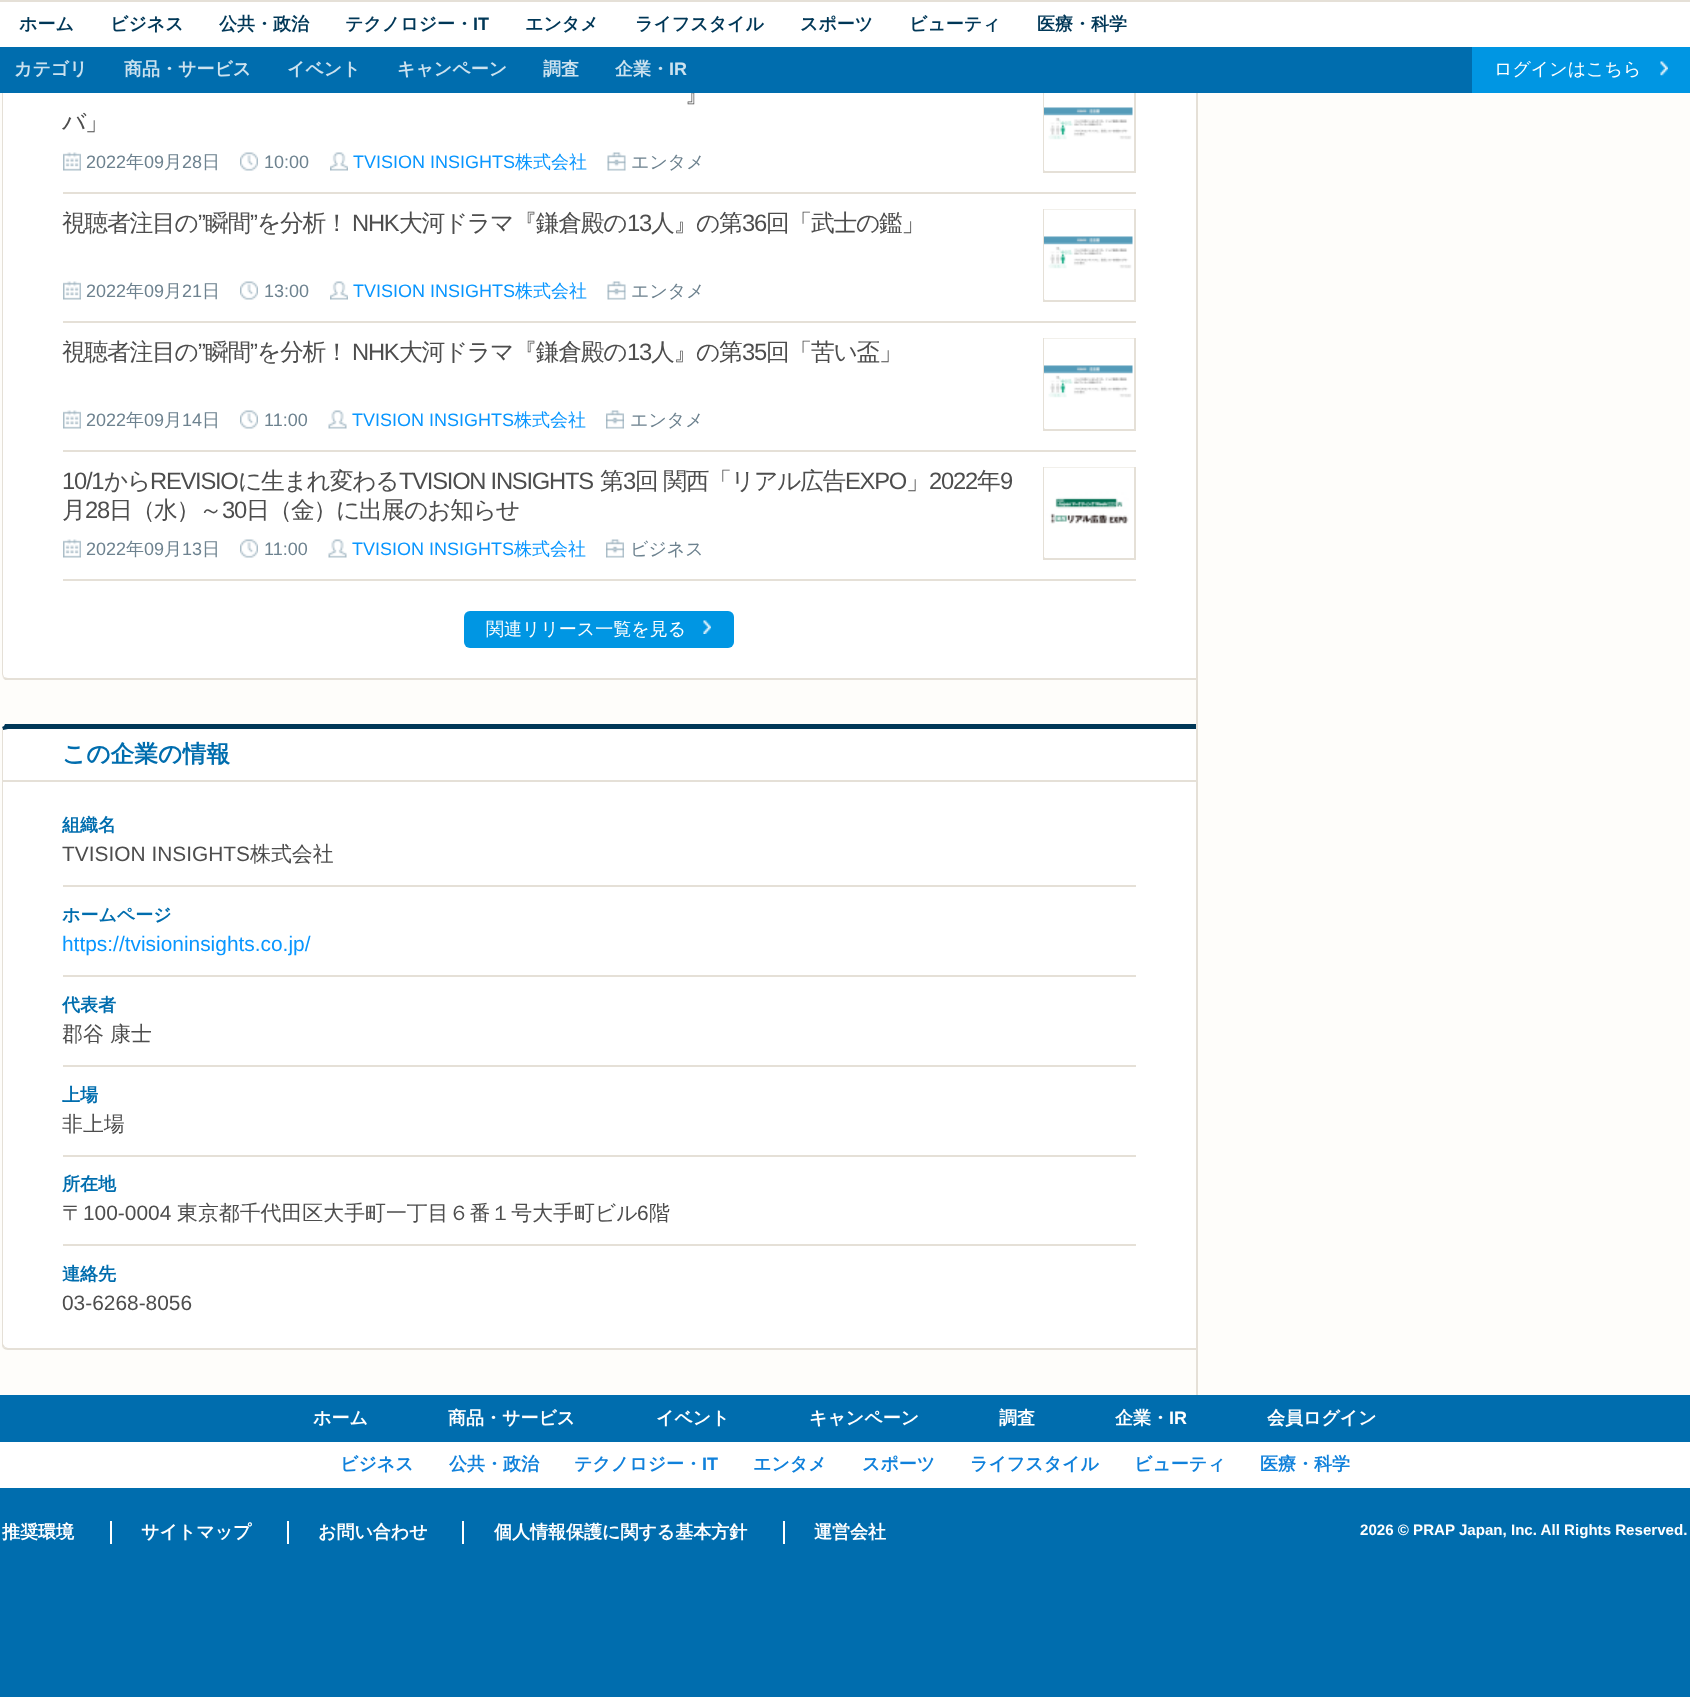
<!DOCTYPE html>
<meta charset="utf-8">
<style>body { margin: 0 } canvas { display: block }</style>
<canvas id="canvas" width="1690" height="1697"></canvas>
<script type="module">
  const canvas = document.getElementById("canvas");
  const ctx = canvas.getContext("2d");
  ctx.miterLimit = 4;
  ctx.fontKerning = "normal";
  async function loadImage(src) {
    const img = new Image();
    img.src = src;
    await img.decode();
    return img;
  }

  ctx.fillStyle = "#fefdfa";
  ctx.fillRect(0, 0, 1690, 1697);
  ctx.fillStyle = "#ffffff";
  ctx.beginPath();
  ctx.moveTo(8, -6);
  ctx.lineTo(1196, -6);
  ctx.lineTo(1196, 680);
  ctx.lineTo(8, 680);
  ctx.bezierCurveTo(4.5, 680, 2, 677.5, 2, 674);
  ctx.lineTo(2, 0);
  ctx.bezierCurveTo(2, -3.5, 4.5, -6, 8, -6);
  ctx.closePath();
  ctx.fill();
  ctx.fillStyle = "#e5e0d7";
  ctx.beginPath();
  ctx.moveTo(1196, 680);
  ctx.lineTo(5, 680);
  ctx.lineTo(3, 678);
  ctx.lineTo(4, 677);
  ctx.bezierCurveTo(5, 677, 6, 678, 8, 678);
  ctx.lineTo(1196, 678);
  ctx.closePath();
  ctx.fill();
  ctx.beginPath();
  ctx.moveTo(3, 678);
  ctx.lineTo(2, 674);
  ctx.lineTo(2, -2);
  ctx.lineTo(2, -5);
  ctx.lineTo(3, -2);
  ctx.lineTo(3, 674);
  ctx.lineTo(4, 677);
  ctx.closePath();
  ctx.fill();
  ctx.letterSpacing = "-1px";
  ctx.font = "500 23.75px WenQuanYi Zen Hei";
  ctx.fillStyle = "#4d4d4d";
  ctx.fillText("』", 685, 102);
  ctx.strokeStyle = "#e5e0d7";
  ctx.lineWidth = 2;
  ctx.strokeRect(1044, 81, 91, 91);
  ctx.fillStyle = "#006dae";
  ctx.fillRect(0, 47, 1472, 46);
  ctx.fillStyle = "#ffffff";
  ctx.fillRect(0, 2, 1690, 45);
  ctx.fillStyle = "#e5e0d7";
  ctx.fillRect(0, 0, 1690, 2);
  ctx.letterSpacing = "0px";
  ctx.font = "bold 18px WenQuanYi Zen Hei";
  ctx.fillStyle = "#003757";
  ctx.fillText("ホーム", 19, 30);
  ctx.fillText("ビジネス", 110, 30);
  ctx.fillText("公共・政治", 219, 30);
  ctx.fillText("テクノロジー・", 345, 30);
  ctx.font = "bold 18px Liberation Sans";
  ctx.fillText("IT", 473, 30);
  ctx.font = "bold 18px WenQuanYi Zen Hei";
  ctx.fillText("エンタメ", 525, 30);
  ctx.fillText("ライフスタイル", 635, 30);
  ctx.fillText("スポーツ", 800, 30);
  ctx.fillText("ビューティ", 909, 30);
  ctx.fillText("医療・科学", 1037, 30);
  ctx.fillStyle = "#cce2ef";
  ctx.fillText("カテゴリ", 14, 75);
  ctx.fillText("商品・サービス", 124, 75);
  ctx.fillText("イベント", 287, 75);
  ctx.fillText("キャンペーン", 397, 75);
  ctx.fillText("調査", 543, 75);
  ctx.fillText("企業・", 615, 75);
  ctx.font = "bold 18px Liberation Sans";
  ctx.fillText("IR", 669, 75);
  ctx.fillStyle = "#0096e3";
  ctx.fillRect(1472, 47, 218, 46);
  ctx.font = "500 18px WenQuanYi Zen Hei";
  ctx.fillStyle = "#ffffff";
  ctx.fillText("ログインはこちら", 1494, 75);
  ctx.drawImage(await loadImage("img1.png"), 1660, 61, 8, 15);
  ctx.letterSpacing = "-1.25px";
  ctx.font = "500 23.75px WenQuanYi Zen Hei";
  ctx.fillStyle = "#4d4d4d";
  ctx.fillText("バ」", 62, 130);
  ctx.drawImage(await loadImage("img2.png"), 1044, 93, 90, 78);
  ctx.drawImage(await loadImage("img3.png"), 63, 152, 18, 19);
  ctx.letterSpacing = "0px";
  ctx.font = "18px Liberation Sans";
  ctx.fillStyle = "#6d828f";
  ctx.fillText("2022", 86, 168);
  ctx.font = "500 18px WenQuanYi Zen Hei";
  ctx.fillText("年", 126, 168);
  ctx.font = "18px Liberation Sans";
  ctx.fillText("09", 144, 168);
  ctx.font = "500 18px WenQuanYi Zen Hei";
  ctx.fillText("月", 164, 168);
  ctx.font = "18px Liberation Sans";
  ctx.fillText("28", 182, 168);
  ctx.font = "500 18px WenQuanYi Zen Hei";
  ctx.fillText("日", 202, 168);
  ctx.drawImage(await loadImage("img4.png"), 240, 152, 18, 19);
  ctx.font = "18px Liberation Sans";
  ctx.fillText("10:00", 264, 168);
  ctx.drawImage(await loadImage("img5.png"), 330, 152, 18, 19);
  ctx.fillStyle = "#0896ff";
  ctx.fillText("TVISION INSIGHTS", 353, 168);
  ctx.font = "500 18px WenQuanYi Zen Hei";
  ctx.fillText("株式会社", 515, 168);
  ctx.drawImage(await loadImage("img6.png"), 607, 152, 19, 19);
  ctx.fillStyle = "#6d828f";
  ctx.fillText("エンタメ", 631, 168);
  ctx.fillStyle = "#e5e0d7";
  ctx.fillRect(63, 192, 1073, 2);
  ctx.letterSpacing = "-1.25px";
  ctx.font = "500 23.75px WenQuanYi Zen Hei";
  ctx.fillStyle = "#4d4d4d";
  ctx.fillText("視聴者注目の", 62, 231);
  ctx.font = "23.75px Liberation Sans";
  ctx.fillText("”", 198, 231);
  ctx.font = "500 23.75px WenQuanYi Zen Hei";
  ctx.fillText("瞬間", 205, 231);
  ctx.font = "23.75px Liberation Sans";
  ctx.fillText("”", 250, 231);
  ctx.font = "500 23.75px WenQuanYi Zen Hei";
  ctx.fillText("を分析！", 257, 231);
  ctx.font = "23.75px Liberation Sans";
  ctx.fillText("NHK", 352, 231);
  ctx.font = "500 23.75px WenQuanYi Zen Hei";
  ctx.fillText("大河ドラマ『鎌倉殿の", 399, 231);
  ctx.font = "23.75px Liberation Sans";
  ctx.fillText("13", 627, 231);
  ctx.font = "500 23.75px WenQuanYi Zen Hei";
  ctx.fillText("人』の第", 651, 231);
  ctx.font = "23.75px Liberation Sans";
  ctx.fillText("36", 742, 231);
  ctx.font = "500 23.75px WenQuanYi Zen Hei";
  ctx.fillText("回「武士の鑑」", 766, 231);
  ctx.strokeRect(1044, 210, 91, 91);
  ctx.drawImage(await loadImage("img7.png"), 1044, 209, 90, 91);
  ctx.drawImage(await loadImage("img3.png"), 63, 281, 18, 19);
  ctx.letterSpacing = "0px";
  ctx.font = "18px Liberation Sans";
  ctx.fillStyle = "#6d828f";
  ctx.fillText("2022", 86, 297);
  ctx.font = "500 18px WenQuanYi Zen Hei";
  ctx.fillText("年", 126, 297);
  ctx.font = "18px Liberation Sans";
  ctx.fillText("09", 144, 297);
  ctx.font = "500 18px WenQuanYi Zen Hei";
  ctx.fillText("月", 164, 297);
  ctx.font = "18px Liberation Sans";
  ctx.fillText("21", 182, 297);
  ctx.font = "500 18px WenQuanYi Zen Hei";
  ctx.fillText("日", 202, 297);
  ctx.drawImage(await loadImage("img4.png"), 240, 281, 18, 19);
  ctx.font = "18px Liberation Sans";
  ctx.fillText("13:00", 264, 297);
  ctx.drawImage(await loadImage("img5.png"), 330, 281, 18, 19);
  ctx.fillStyle = "#0896ff";
  ctx.fillText("TVISION INSIGHTS", 353, 297);
  ctx.font = "500 18px WenQuanYi Zen Hei";
  ctx.fillText("株式会社", 515, 297);
  ctx.drawImage(await loadImage("img6.png"), 607, 281, 19, 19);
  ctx.fillStyle = "#6d828f";
  ctx.fillText("エンタメ", 631, 297);
  ctx.fillStyle = "#e5e0d7";
  ctx.fillRect(63, 321, 1073, 2);
  ctx.letterSpacing = "-1.25px";
  ctx.font = "500 23.75px WenQuanYi Zen Hei";
  ctx.fillStyle = "#4d4d4d";
  ctx.fillText("視聴者注目の", 62, 360);
  ctx.font = "23.75px Liberation Sans";
  ctx.fillText("”", 198, 360);
  ctx.font = "500 23.75px WenQuanYi Zen Hei";
  ctx.fillText("瞬間", 205, 360);
  ctx.font = "23.75px Liberation Sans";
  ctx.fillText("”", 250, 360);
  ctx.font = "500 23.75px WenQuanYi Zen Hei";
  ctx.fillText("を分析！", 257, 360);
  ctx.font = "23.75px Liberation Sans";
  ctx.fillText("NHK", 352, 360);
  ctx.font = "500 23.75px WenQuanYi Zen Hei";
  ctx.fillText("大河ドラマ『鎌倉殿の", 399, 360);
  ctx.font = "23.75px Liberation Sans";
  ctx.fillText("13", 627, 360);
  ctx.font = "500 23.75px WenQuanYi Zen Hei";
  ctx.fillText("人』の第", 651, 360);
  ctx.font = "23.75px Liberation Sans";
  ctx.fillText("35", 742, 360);
  ctx.font = "500 23.75px WenQuanYi Zen Hei";
  ctx.fillText("回「苦い盃」", 766, 360);
  ctx.strokeRect(1044, 339, 91, 91);
  ctx.drawImage(await loadImage("img7.png"), 1044, 338, 90, 91);
  ctx.drawImage(await loadImage("img3.png"), 63, 410, 18, 19);
  ctx.letterSpacing = "0px";
  ctx.font = "18px Liberation Sans";
  ctx.fillStyle = "#6d828f";
  ctx.fillText("2022", 86, 426);
  ctx.font = "500 18px WenQuanYi Zen Hei";
  ctx.fillText("年", 126, 426);
  ctx.font = "18px Liberation Sans";
  ctx.fillText("09", 144, 426);
  ctx.font = "500 18px WenQuanYi Zen Hei";
  ctx.fillText("月", 164, 426);
  ctx.font = "18px Liberation Sans";
  ctx.fillText("14", 182, 426);
  ctx.font = "500 18px WenQuanYi Zen Hei";
  ctx.fillText("日", 202, 426);
  ctx.drawImage(await loadImage("img4.png"), 240, 410, 18, 19);
  ctx.font = "18px Liberation Sans";
  ctx.fillText("11:00", 264, 426);
  ctx.drawImage(await loadImage("img8.png"), 328, 410, 19, 19);
  ctx.fillStyle = "#0896ff";
  ctx.fillText("TVISION INSIGHTS", 352, 426);
  ctx.font = "500 18px WenQuanYi Zen Hei";
  ctx.fillText("株式会社", 514, 426);
  ctx.drawImage(await loadImage("img9.png"), 606, 410, 18, 19);
  ctx.fillStyle = "#6d828f";
  ctx.fillText("エンタメ", 630, 426);
  ctx.fillStyle = "#e5e0d7";
  ctx.fillRect(63, 450, 1073, 2);
  ctx.letterSpacing = "-1.25px";
  ctx.font = "23.75px Liberation Sans";
  ctx.fillStyle = "#4d4d4d";
  ctx.fillText("10/1", 62, 489);
  ctx.font = "500 23.75px WenQuanYi Zen Hei";
  ctx.fillText("から", 104, 489);
  ctx.font = "23.75px Liberation Sans";
  ctx.fillText("REVISIO", 150, 489);
  ctx.font = "500 23.75px WenQuanYi Zen Hei";
  ctx.fillText("に生まれ変わる", 238, 489);
  ctx.font = "23.75px Liberation Sans";
  ctx.fillText("TVISION INSIGHTS", 399, 489);
  ctx.font = "500 23.75px WenQuanYi Zen Hei";
  ctx.fillText("第", 600, 489);
  ctx.font = "23.75px Liberation Sans";
  ctx.fillText("3", 623, 489);
  ctx.font = "500 23.75px WenQuanYi Zen Hei";
  ctx.fillText("回 関西「リアル広告", 635, 489);
  ctx.font = "23.75px Liberation Sans";
  ctx.fillText("EXPO", 845, 489);
  ctx.font = "500 23.75px WenQuanYi Zen Hei";
  ctx.fillText("」", 906, 489);
  ctx.font = "23.75px Liberation Sans";
  ctx.fillText("2022", 929, 489);
  ctx.font = "500 23.75px WenQuanYi Zen Hei";
  ctx.fillText("年", 977, 489);
  ctx.font = "23.75px Liberation Sans";
  ctx.fillText("9", 1000, 489);
  ctx.font = "500 23.75px WenQuanYi Zen Hei";
  ctx.fillText("月", 62, 518);
  ctx.font = "23.75px Liberation Sans";
  ctx.fillText("28", 85, 518);
  ctx.font = "500 23.75px WenQuanYi Zen Hei";
  ctx.fillText("日（水）～", 109, 518);
  ctx.font = "23.75px Liberation Sans";
  ctx.fillText("30", 222, 518);
  ctx.font = "500 23.75px WenQuanYi Zen Hei";
  ctx.fillText("日（金）に出展のお知らせ", 246, 518);
  ctx.strokeRect(1044, 468, 91, 91);
  ctx.drawImage(await loadImage("img10.png"), 1044, 467, 90, 91);
  ctx.drawImage(await loadImage("img3.png"), 63, 539, 18, 19);
  ctx.letterSpacing = "0px";
  ctx.font = "18px Liberation Sans";
  ctx.fillStyle = "#6d828f";
  ctx.fillText("2022", 86, 555);
  ctx.font = "500 18px WenQuanYi Zen Hei";
  ctx.fillText("年", 126, 555);
  ctx.font = "18px Liberation Sans";
  ctx.fillText("09", 144, 555);
  ctx.font = "500 18px WenQuanYi Zen Hei";
  ctx.fillText("月", 164, 555);
  ctx.font = "18px Liberation Sans";
  ctx.fillText("13", 182, 555);
  ctx.font = "500 18px WenQuanYi Zen Hei";
  ctx.fillText("日", 202, 555);
  ctx.drawImage(await loadImage("img4.png"), 240, 539, 18, 19);
  ctx.font = "18px Liberation Sans";
  ctx.fillText("11:00", 264, 555);
  ctx.drawImage(await loadImage("img8.png"), 328, 539, 19, 19);
  ctx.fillStyle = "#0896ff";
  ctx.fillText("TVISION INSIGHTS", 352, 555);
  ctx.font = "500 18px WenQuanYi Zen Hei";
  ctx.fillText("株式会社", 514, 555);
  ctx.drawImage(await loadImage("img9.png"), 606, 539, 18, 19);
  ctx.fillStyle = "#6d828f";
  ctx.fillText("ビジネス", 630, 555);
  ctx.fillStyle = "#e5e0d7";
  ctx.fillRect(63, 579, 1073, 2);
  ctx.fillStyle = "#0096e3";
  ctx.beginPath();
  ctx.roundRect(464, 611, 270, 37, 6);
  ctx.fill();
  ctx.fillStyle = "#ffffff";
  ctx.fillText("関連リリース一覧を見る", 486, 635);
  ctx.drawImage(await loadImage("img11.png"), 703, 620, 8, 14);
  ctx.beginPath();
  ctx.roundRect(2, 725, 1194, 625, [6, 0, 0, 6]);
  ctx.fill();
  ctx.fillStyle = "#003757";
  ctx.beginPath();
  ctx.moveTo(8, 729);
  ctx.lineTo(3, 730);
  ctx.lineTo(2, 727);
  ctx.lineTo(4, 726);
  ctx.lineTo(5, 724);
  ctx.lineTo(1196, 724);
  ctx.lineTo(1196, 729);
  ctx.closePath();
  ctx.fill();
  ctx.fillStyle = "#e5e0d7";
  ctx.beginPath();
  ctx.moveTo(1196, 1350);
  ctx.lineTo(1196, 1348);
  ctx.lineTo(8, 1348);
  ctx.lineTo(5, 1347);
  ctx.lineTo(3, 1348);
  ctx.bezierCurveTo(4, 1349, 6, 1350, 8, 1350);
  ctx.closePath();
  ctx.fill();
  ctx.beginPath();
  ctx.moveTo(3, 1348);
  ctx.bezierCurveTo(2, 1347, 2, 1345, 2, 1344);
  ctx.lineTo(2, 730);
  ctx.lineTo(2, 727);
  ctx.lineTo(3, 730);
  ctx.lineTo(3, 1344);
  ctx.lineTo(5, 1347);
  ctx.closePath();
  ctx.fill();
  ctx.fillRect(3, 780, 1193, 2);
  ctx.font = "bold 23.75px WenQuanYi Zen Hei";
  ctx.fillStyle = "#006dae";
  ctx.fillText("この企業の情報", 62, 762);
  ctx.font = "bold 18px WenQuanYi Zen Hei";
  ctx.fillText("組織名", 62, 831);
  ctx.font = "20.9px Liberation Sans";
  ctx.fillStyle = "#4d4d4d";
  ctx.fillText("TVISION INSIGHTS", 62, 861);
  ctx.font = "500 20.9px WenQuanYi Zen Hei";
  ctx.fillText("株式会社", 250, 861);
  ctx.fillStyle = "#e5e0d7";
  ctx.fillRect(63, 885, 1073, 2);
  ctx.font = "bold 18px WenQuanYi Zen Hei";
  ctx.fillStyle = "#006dae";
  ctx.fillText("ホームページ", 62, 921);
  ctx.font = "20.9px Liberation Sans";
  ctx.fillStyle = "#0896ff";
  ctx.fillText("https://tvisioninsights.co.jp/", 62, 951);
  ctx.fillStyle = "#e5e0d7";
  ctx.fillRect(63, 975, 1073, 2);
  ctx.font = "bold 18px WenQuanYi Zen Hei";
  ctx.fillStyle = "#006dae";
  ctx.fillText("代表者", 62, 1011);
  ctx.font = "500 20.9px WenQuanYi Zen Hei";
  ctx.fillStyle = "#4d4d4d";
  ctx.fillText("郡谷 康士", 62, 1041);
  ctx.fillStyle = "#e5e0d7";
  ctx.fillRect(63, 1065, 1073, 2);
  ctx.font = "bold 18px WenQuanYi Zen Hei";
  ctx.fillStyle = "#006dae";
  ctx.fillText("上場", 62, 1101);
  ctx.font = "500 20.9px WenQuanYi Zen Hei";
  ctx.fillStyle = "#4d4d4d";
  ctx.fillText("非上場", 62, 1131);
  ctx.fillStyle = "#e5e0d7";
  ctx.fillRect(63, 1155, 1073, 2);
  ctx.font = "bold 18px WenQuanYi Zen Hei";
  ctx.fillStyle = "#006dae";
  ctx.fillText("所在地", 62, 1190);
  ctx.font = "500 20.9px WenQuanYi Zen Hei";
  ctx.fillStyle = "#4d4d4d";
  ctx.fillText("〒", 62, 1220);
  ctx.font = "20.9px Liberation Sans";
  ctx.fillText("100-0004", 83, 1220);
  ctx.font = "500 20.9px WenQuanYi Zen Hei";
  ctx.fillText("東京都千代田区大手町一丁目６番１号大手町ビル", 177, 1220);
  ctx.font = "20.9px Liberation Sans";
  ctx.fillText("6", 637, 1220);
  ctx.font = "500 20.9px WenQuanYi Zen Hei";
  ctx.fillText("階", 649, 1220);
  ctx.fillStyle = "#e5e0d7";
  ctx.fillRect(63, 1244, 1073, 2);
  ctx.font = "bold 18px WenQuanYi Zen Hei";
  ctx.fillStyle = "#006dae";
  ctx.fillText("連絡先", 62, 1280);
  ctx.font = "20.9px Liberation Sans";
  ctx.fillStyle = "#4d4d4d";
  ctx.fillText("03-6268-8056", 62, 1310);
  ctx.fillStyle = "#e5e0d7";
  ctx.fillRect(1196, 93, 2, 1302);
  ctx.fillStyle = "#006dae";
  ctx.fillRect(0, 1395, 1690, 302);
  ctx.font = "bold 18px WenQuanYi Zen Hei";
  ctx.fillStyle = "#ffffff";
  ctx.fillText("ホーム", 313, 1424);
  ctx.fillText("商品・サービス", 448, 1424);
  ctx.fillText("イベント", 656, 1424);
  ctx.fillText("キャンペーン", 809, 1424);
  ctx.fillText("調査", 999, 1424);
  ctx.fillText("企業・", 1115, 1424);
  ctx.font = "bold 18px Liberation Sans";
  ctx.fillText("IR", 1169, 1424);
  ctx.font = "bold 18px WenQuanYi Zen Hei";
  ctx.fillText("会員ログイン", 1267, 1424);
  ctx.fillRect(0, 1442, 1690, 46);
  ctx.fillStyle = "#1081db";
  ctx.fillText("ビジネス", 340, 1470);
  ctx.fillText("公共・政治", 449, 1470);
  ctx.fillText("テクノロジー・", 574, 1470);
  ctx.font = "bold 18px Liberation Sans";
  ctx.fillText("IT", 702, 1470);
  ctx.font = "bold 18px WenQuanYi Zen Hei";
  ctx.fillText("エンタメ", 753, 1470);
  ctx.fillText("スポーツ", 862, 1470);
  ctx.fillText("ライフスタイル", 970, 1470);
  ctx.fillText("ビューティ", 1134, 1470);
  ctx.fillText("医療・科学", 1260, 1470);
  ctx.fillStyle = "#ffffff";
  ctx.fillText("推奨環境", 2, 1538);
  ctx.fillRect(110, 1521, 2, 23);
  ctx.fillText("サイトマップ", 141, 1538);
  ctx.fillRect(287, 1521, 2, 23);
  ctx.fillText("お問い合わせ", 318, 1538);
  ctx.fillRect(462, 1521, 2, 23);
  ctx.fillText("個人情報保護に関する基本方針", 494, 1538);
  ctx.fillRect(783, 1521, 2, 23);
  ctx.fillText("運営会社", 814, 1538);
  ctx.font = "bold 15.1px Liberation Sans";
  ctx.fillText("2026 © PRAP Japan, Inc. All Rights Reserved.", 1360, 1535);
</script>
